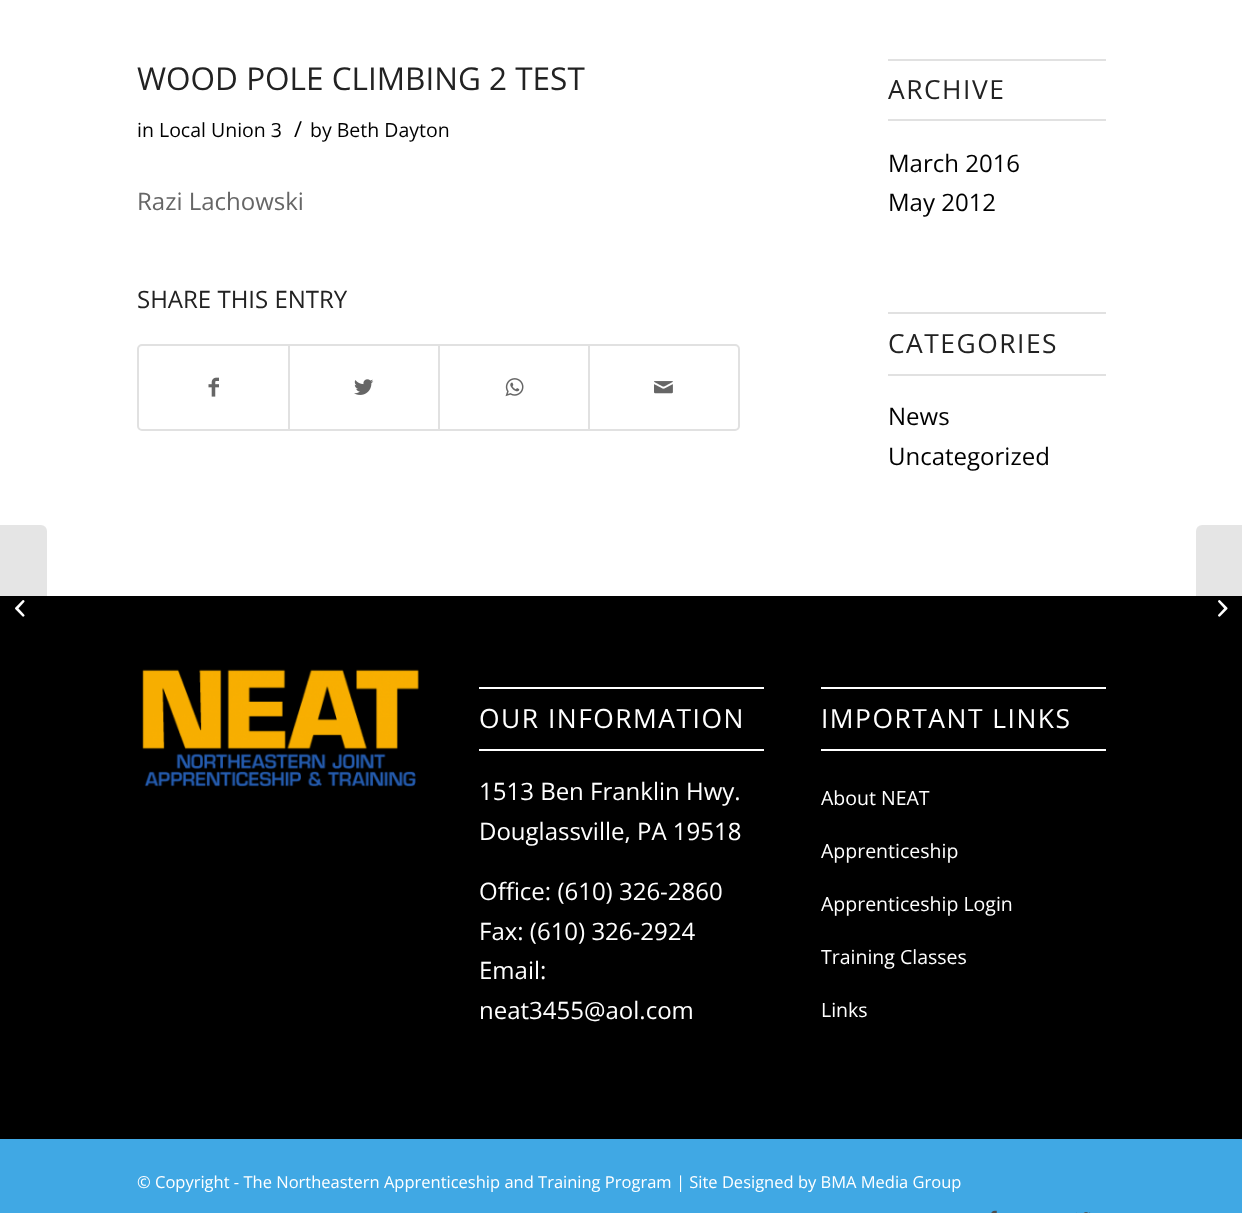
<!DOCTYPE html>
<meta charset="utf-8">
<style>body { margin: 0 } canvas { display: block }</style>
<canvas id="canvas" width="1242" height="1213"></canvas>
<script type="module">
  const canvas = document.getElementById("canvas");
  const ctx = canvas.getContext("2d");
  ctx.miterLimit = 4;
  ctx.fontKerning = "normal";
  async function loadImage(src) {
    const img = new Image();
    img.src = src;
    await img.decode();
    return img;
  }

  ctx.fillStyle = "#000000";
  ctx.fillRect(0, 0, 1242, 1213);
  ctx.fillStyle = "#ffffff";
  ctx.fillRect(0, 0, 1242, 596);
  ctx.fillStyle = "rgba(0, 0, 0, 0.1)";
  ctx.beginPath();
  ctx.roundRect(0, 525, 47, 165, [0, 6, 6, 0]);
  ctx.fill();
  ctx.drawImage(await loadImage("img1.png"), 15, 600, 10, 17);
  ctx.font = "31.5px Open Sans";
  ctx.fillStyle = "#222222";
  ctx.fillText("WOOD POLE CLIMBING 2 TEST", 137, 90);
  ctx.font = "19.5px Open Sans";
  ctx.fillStyle = "#000000";
  ctx.fillText("in Local Union 3", 137, 137);
  ctx.font = "22px Open Sans";
  ctx.fillText("/", 294, 137);
  ctx.font = "19.5px Open Sans";
  ctx.fillText("by Beth Dayton", 310, 137);
  ctx.font = "24px Open Sans";
  ctx.fillStyle = "#666666";
  ctx.fillText("Razi Lachowski", 137, 210);
  ctx.fillStyle = "#222222";
  ctx.fillText("SHARE THIS ENTRY", 137, 308);
  ctx.beginPath();
  ctx.roundRect(138, 345, 601, 85, 4);
  ctx.strokeStyle = "#e1e1e1";
  ctx.lineWidth = 2;
  ctx.stroke();
  ctx.drawImage(await loadImage("img2.png"), 208, 377, 11, 20);
  ctx.fillStyle = "#e1e1e1";
  ctx.fillRect(288, 345, 2, 84);
  ctx.drawImage(await loadImage("img3.png"), 354, 379, 20, 16);
  ctx.fillRect(438, 345, 2, 84);
  ctx.drawImage(await loadImage("img4.png"), 505, 378, 19, 19);
  ctx.fillRect(588, 345, 2, 84);
  ctx.drawImage(await loadImage("img5.png"), 654, 381, 19, 13);
  ctx.fillRect(888, 59, 218, 2);
  ctx.fillRect(888, 119, 218, 2);
  ctx.letterSpacing = "1.5px";
  ctx.font = "26.4px Open Sans";
  ctx.fillStyle = "#222222";
  ctx.fillText("ARCHIVE", 888, 99);
  ctx.letterSpacing = "0px";
  ctx.font = "24px Open Sans";
  ctx.fillStyle = "#000000";
  ctx.fillText("March 2016", 888, 172);
  ctx.fillText("May 2012", 888, 211);
  ctx.fillStyle = "#e1e1e1";
  ctx.fillRect(888, 312, 218, 2);
  ctx.fillRect(888, 374, 218, 2);
  ctx.letterSpacing = "1.5px";
  ctx.font = "26.4px Open Sans";
  ctx.fillStyle = "#222222";
  ctx.fillText("CATEGORIES", 888, 353);
  ctx.letterSpacing = "0px";
  ctx.font = "24px Open Sans";
  ctx.fillStyle = "#000000";
  ctx.fillText("News", 888, 425);
  ctx.fillText("Uncategorized", 888, 465);
  ctx.drawImage(await loadImage("img6.png"), 142, 669, 277, 118);
  ctx.fillStyle = "#ffffff";
  ctx.fillRect(479, 687, 285, 2);
  ctx.fillRect(479, 749, 285, 2);
  ctx.letterSpacing = "1.5px";
  ctx.font = "26.4px Open Sans";
  ctx.fillText("OUR INFORMATION", 479, 728);
  ctx.letterSpacing = "0px";
  ctx.font = "24px Open Sans";
  ctx.fillText("1513 Ben Franklin Hwy.", 479, 800);
  ctx.fillText("Douglassville, PA 19518", 479, 840);
  ctx.fillText("Office: (610) 326-2860", 479, 900);
  ctx.fillText("Fax: (610) 326-2924", 479, 940);
  ctx.fillText("Email:", 479, 979);
  ctx.fillText("neat3455@aol.com", 479, 1019);
  ctx.fillRect(821, 687, 285, 2);
  ctx.fillRect(821, 749, 285, 2);
  ctx.letterSpacing = "1.5px";
  ctx.font = "26.4px Open Sans";
  ctx.fillText("IMPORTANT LINKS", 821, 728);
  ctx.letterSpacing = "0px";
  ctx.font = "19.5px Open Sans";
  ctx.fillText("About NEAT", 821, 805);
  ctx.fillText("Apprenticeship", 821, 858);
  ctx.fillText("Apprenticeship Login", 821, 911);
  ctx.fillText("Training Classes", 821, 964);
  ctx.fillText("Links", 821, 1017);
  ctx.fillStyle = "#40a8e4";
  ctx.fillRect(0, 1139, 1242, 74);
  ctx.font = "16.5px Open Sans";
  ctx.fillStyle = "#ffffff";
  ctx.fillText("© Copyright - The Northeastern Apprenticeship and Training Program | Site Designed by BMA Media Group", 137, 1188);
  ctx.drawImage(await loadImage("img7.png"), 991, 1210, 6, 3);
  ctx.drawImage(await loadImage("img8.png"), 1076, 1212, 15, 1);
  ctx.fillStyle = "rgba(0, 0, 0, 0.1)";
  ctx.beginPath();
  ctx.roundRect(1196, 525, 46, 165, [6, 0, 0, 6]);
  ctx.fill();
  ctx.drawImage(await loadImage("img9.png"), 1218, 600, 10, 17);
</script>
